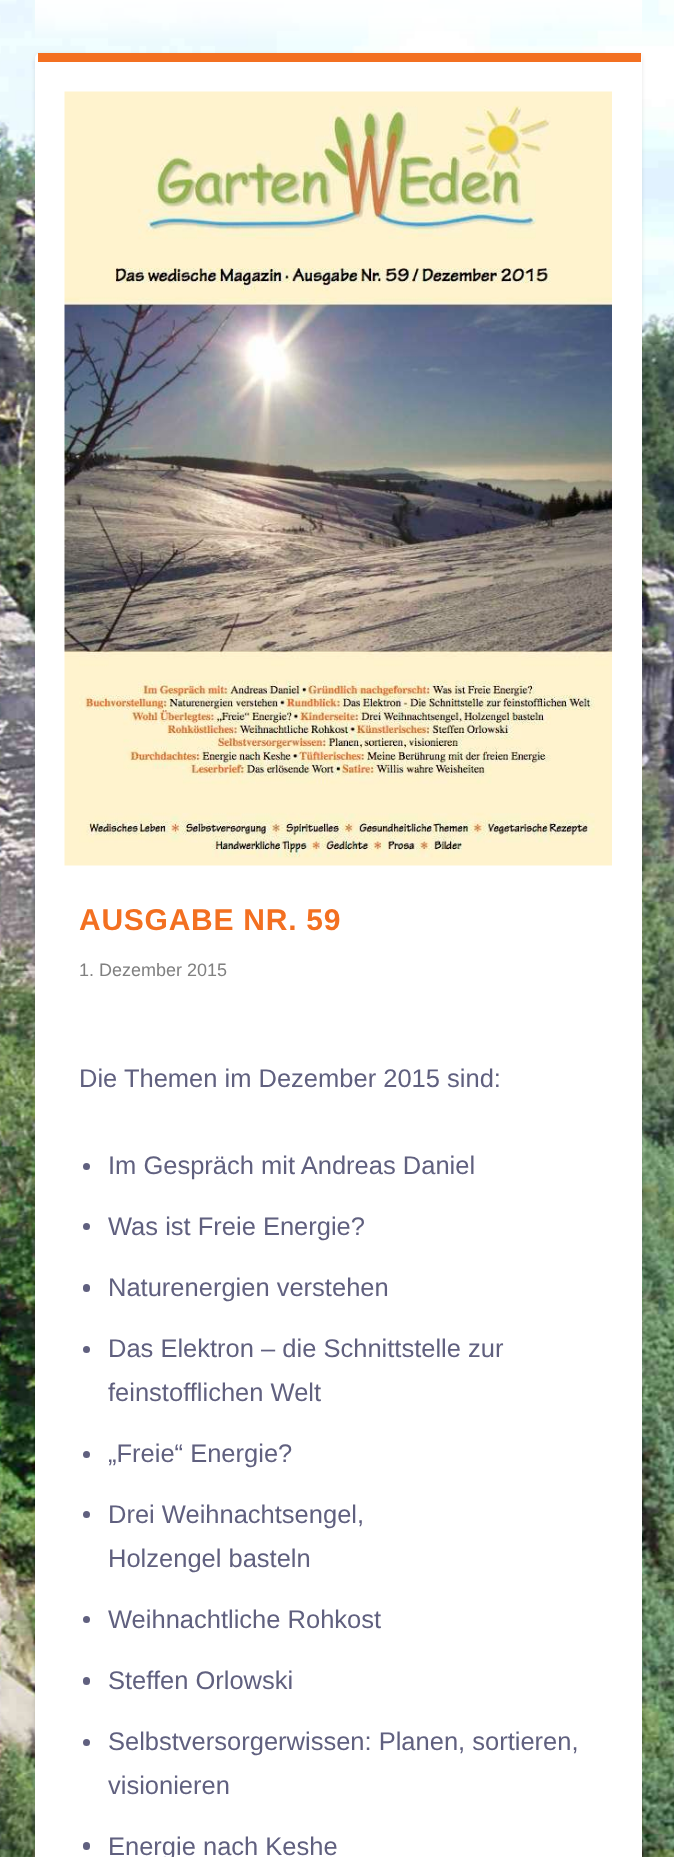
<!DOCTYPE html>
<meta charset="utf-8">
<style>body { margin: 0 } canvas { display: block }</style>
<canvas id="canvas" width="674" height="1857"></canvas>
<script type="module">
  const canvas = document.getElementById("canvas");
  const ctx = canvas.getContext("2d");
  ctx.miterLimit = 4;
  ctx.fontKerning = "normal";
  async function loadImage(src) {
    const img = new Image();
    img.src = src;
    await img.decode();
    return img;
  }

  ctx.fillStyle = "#ffffff";
  ctx.fillRect(0, 0, 674, 1857);
  ctx.drawImage(await loadImage("img1.png"), 0, 0, 674, 1857);
  ctx.fillStyle = "rgba(0, 0, 0, 0.1)";
  ctx.filter = "blur(2px)";
  ctx.beginPath();
  ctx.roundRect(35, 54, 607, 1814, 5);
  ctx.fill();
  ctx.filter = "none";
  ctx.fillStyle = "#ffffff";
  ctx.beginPath();
  ctx.roundRect(35, 53, 607, 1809, 5);
  ctx.fill();
  ctx.fillStyle = "#f37021";
  ctx.fillRect(38, 53, 603, 9);
  ctx.drawImage(await loadImage("img2.png"), 64, 91, 548, 775);
  ctx.letterSpacing = "0.75px";
  ctx.font = "bold 30px Liberation Sans";
  ctx.fillText("AUSGABE NR. 59", 79, 930);
  ctx.letterSpacing = "0px";
  ctx.font = "18px Liberation Sans";
  ctx.fillStyle = "#808080";
  ctx.fillText("1. Dezember 2015", 79, 976);
  ctx.font = "25.5px Liberation Sans";
  ctx.fillStyle = "#60607f";
  ctx.fillText("Die Themen im Dezember 2015 sind:", 79, 1087);
  ctx.beginPath();
  ctx.arc(86.5, 1166.5, 3.5, 0, Math.PI * 2);
  ctx.fill();
  ctx.fillText("Im Gespräch mit Andreas Daniel", 108, 1174);
  ctx.beginPath();
  ctx.arc(86.5, 1226.5, 3.5, 0, Math.PI * 2);
  ctx.fill();
  ctx.fillText("Was ist Freie Energie?", 108, 1235);
  ctx.beginPath();
  ctx.roundRect(83, 1284, 7, 8, 3.5);
  ctx.fill();
  ctx.fillText("Naturenergien verstehen", 108, 1296);
  ctx.beginPath();
  ctx.arc(86.5, 1349.5, 3.5, 0, Math.PI * 2);
  ctx.fill();
  ctx.fillText("Das Elektron – die Schnittstelle zur", 108, 1357);
  ctx.fillText("feinstofflichen Welt", 108, 1401);
  ctx.beginPath();
  ctx.arc(86.5, 1454.5, 3.5, 0, Math.PI * 2);
  ctx.fill();
  ctx.fillText("„Freie“ Energie?", 108, 1462);
  ctx.beginPath();
  ctx.arc(86.5, 1514.5, 3.5, 0, Math.PI * 2);
  ctx.fill();
  ctx.fillText("Drei Weihnachtsengel,", 108, 1523);
  ctx.fillText("Holzengel basteln", 108, 1567);
  ctx.beginPath();
  ctx.arc(86.5, 1619.5, 3.5, 0, Math.PI * 2);
  ctx.fill();
  ctx.fillText("Weihnachtliche Rohkost", 108, 1628);
  ctx.beginPath();
  ctx.roundRect(83, 1677, 7, 8, 3.5);
  ctx.fill();
  ctx.fillText("Steffen Orlowski", 108, 1689);
  ctx.beginPath();
  ctx.arc(86.5, 1742.5, 3.5, 0, Math.PI * 2);
  ctx.fill();
  ctx.fillText("Selbstversorgerwissen: Planen, sortieren,", 108, 1750);
  ctx.fillText("visionieren", 108, 1794);
  ctx.beginPath();
  ctx.roundRect(83, 1842, 7, 8, 3.5);
  ctx.fill();
  ctx.fillText("Energie nach Keshe", 108, 1855);
</script>
